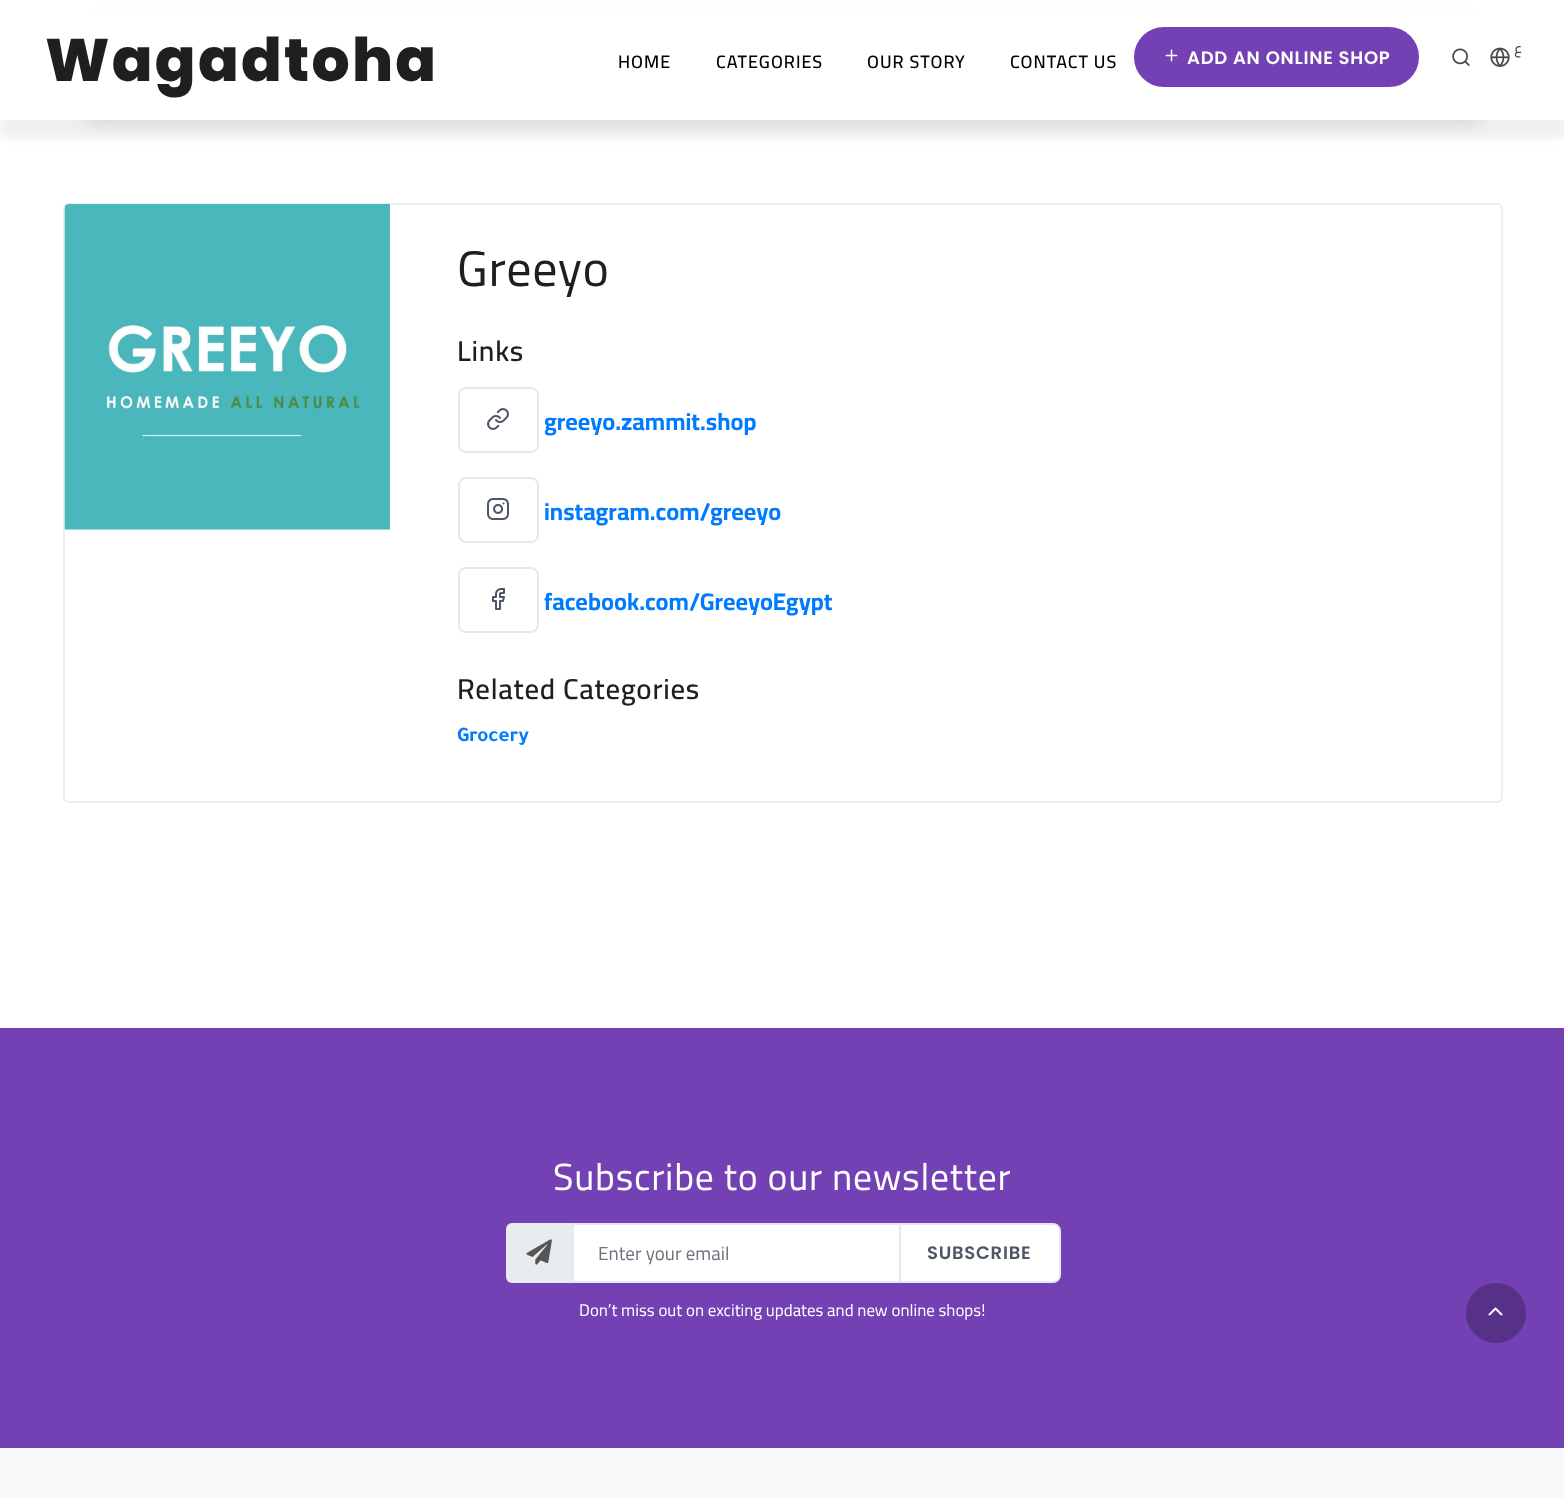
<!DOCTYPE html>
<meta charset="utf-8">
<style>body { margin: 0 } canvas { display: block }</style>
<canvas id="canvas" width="1564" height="1498"></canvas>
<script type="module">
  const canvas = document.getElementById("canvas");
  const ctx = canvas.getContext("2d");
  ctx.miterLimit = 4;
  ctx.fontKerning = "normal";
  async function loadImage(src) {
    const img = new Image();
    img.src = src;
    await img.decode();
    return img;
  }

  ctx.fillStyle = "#ffffff";
  ctx.fillRect(0, 0, 1564, 1498);
  ctx.fillStyle = "rgba(0, 0, 0, 0.06)";
  ctx.filter = "blur(4.5px)";
  ctx.beginPath();
  ctx.rect(0, 18, 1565, 120);
  ctx.fill();
  ctx.filter = "none";
  ctx.fillStyle = "rgba(0, 0, 0, 0.15)";
  ctx.filter = "blur(10.5px)";
  ctx.beginPath();
  ctx.roundRect(86, 27, 1395, 93, 8);
  ctx.fill();
  ctx.filter = "none";
  ctx.fillStyle = "#ffffff";
  ctx.fillRect(0, 10, 1564, 110);
  ctx.letterSpacing = "2.25px";
  ctx.font = "800 60px Poppins";
  ctx.fillStyle = "#1f1f1f";
  ctx.fillText("Wagadtoha", 45, 81);
  ctx.letterSpacing = "1px";
  ctx.font = "600 18px Cairo";
  ctx.fillStyle = "#000000";
  ctx.fillText("HOME", 618, 68);
  ctx.fillText("CATEGORIES", 716, 68);
  ctx.fillText("OUR STORY", 867, 68);
  ctx.fillText("CONTACT US", 1010, 68);
  ctx.fillStyle = "#7341b4";
  ctx.beginPath();
  ctx.roundRect(1135, 28, 283, 58, 29);
  ctx.fill();
  ctx.strokeStyle = "#7341b4";
  ctx.lineWidth = 2;
  ctx.stroke();
  ctx.drawImage(await loadImage("img1.png"), 1165, 49, 13, 13);
  ctx.letterSpacing = "0.75px";
  ctx.font = "600 18px Poppins";
  ctx.fillStyle = "#ffffff";
  ctx.fillText("ADD AN ONLINE SHOP", 1187, 64);
  ctx.drawImage(await loadImage("img2.png"), 1452, 48, 18, 18);
  ctx.drawImage(await loadImage("img3.png"), 1490, 47, 20, 20);
  ctx.letterSpacing = "0px";
  ctx.direction = "rtl";
  ctx.font = "600 14px Cairo";
  ctx.fillStyle = "#484848";
  ctx.fillText("ع", 1522, 53);
  ctx.beginPath();
  ctx.roundRect(64, 204, 1438, 598, 5);
  ctx.strokeStyle = "#eeeeee";
  ctx.stroke();
  ctx.drawImage(await loadImage("img4.png"), 64, 204, 326, 326);
  ctx.letterSpacing = "0.75px";
  ctx.direction = "ltr";
  ctx.font = "50px Cairo";
  ctx.fillStyle = "#1f1f1f";
  ctx.fillText("Greeyo", 457, 286);
  ctx.font = "600 28.75px Cairo";
  ctx.fillText("Links", 457, 361);
  ctx.beginPath();
  ctx.roundRect(459, 388, 79, 64, 7);
  ctx.strokeStyle = "#e6e8eb";
  ctx.stroke();
  ctx.drawImage(await loadImage("img5.png"), 487, 408, 22, 22);
  ctx.letterSpacing = "0px";
  ctx.font = "bold 24px Cairo";
  ctx.fillStyle = "#007bff";
  ctx.fillText("greeyo.zammit.shop", 544, 430);
  ctx.beginPath();
  ctx.roundRect(459, 478, 79, 64, 7);
  ctx.stroke();
  ctx.drawImage(await loadImage("img6.png"), 487, 498, 22, 22);
  ctx.fillText("instagram.com/greeyo", 544, 520);
  ctx.beginPath();
  ctx.roundRect(459, 568, 79, 64, 7);
  ctx.stroke();
  ctx.drawImage(await loadImage("img7.png"), 492, 588, 13, 22);
  ctx.fillText("facebook.com/GreeyoEgypt", 544, 610);
  ctx.letterSpacing = "0.75px";
  ctx.font = "600 28.75px Cairo";
  ctx.fillStyle = "#1f1f1f";
  ctx.fillText("Related Categories", 457, 699);
  ctx.letterSpacing = "0px";
  ctx.font = "bold 21px Tajawal";
  ctx.fillStyle = "#007bff";
  ctx.fillText("Grocery", 457, 741);
  ctx.fillStyle = "#7341b4";
  ctx.fillRect(0, 1028, 1564, 420);
  ctx.letterSpacing = "0.75px";
  ctx.font = "37.75px Cairo";
  ctx.fillStyle = "#ffffff";
  ctx.fillText("Subscribe to our newsletter", 553, 1190);
  ctx.fillStyle = "#e9ecef";
  ctx.beginPath();
  ctx.roundRect(506, 1223, 67, 60, [6, 0, 0, 6]);
  ctx.fill();
  ctx.drawImage(await loadImage("img8.png"), 526, 1239, 26, 26);
  ctx.fillStyle = "#ffffff";
  ctx.fillRect(574, 1225, 325, 56);
  ctx.strokeRect(573, 1224, 332, 58);
  ctx.letterSpacing = "0px";
  ctx.font = "19px Cairo";
  ctx.fillStyle = "#6c757d";
  ctx.fillText("Enter your email", 598, 1260);
  ctx.fillStyle = "#ffffff";
  ctx.beginPath();
  ctx.roundRect(900, 1224, 160, 58, [0, 7, 7, 0]);
  ctx.fill();
  ctx.stroke();
  ctx.letterSpacing = "0.75px";
  ctx.font = "600 18px Poppins";
  ctx.fillStyle = "#4c5667";
  ctx.fillText("SUBSCRIBE", 927, 1259);
  ctx.letterSpacing = "0px";
  ctx.font = "16.9px Cairo";
  ctx.fillStyle = "#ffffff";
  ctx.fillText("Don’t miss out on exciting updates and new online shops!", 579, 1316);
  ctx.fillStyle = "#f8f9fa";
  ctx.fillRect(0, 1448, 1564, 50);
  ctx.fillStyle = "#563187";
  ctx.beginPath();
  ctx.arc(1496, 1313, 30, 0, Math.PI * 2);
  ctx.fill();
  ctx.drawImage(await loadImage("img9.png"), 1488, 1307, 15, 9);
</script>
